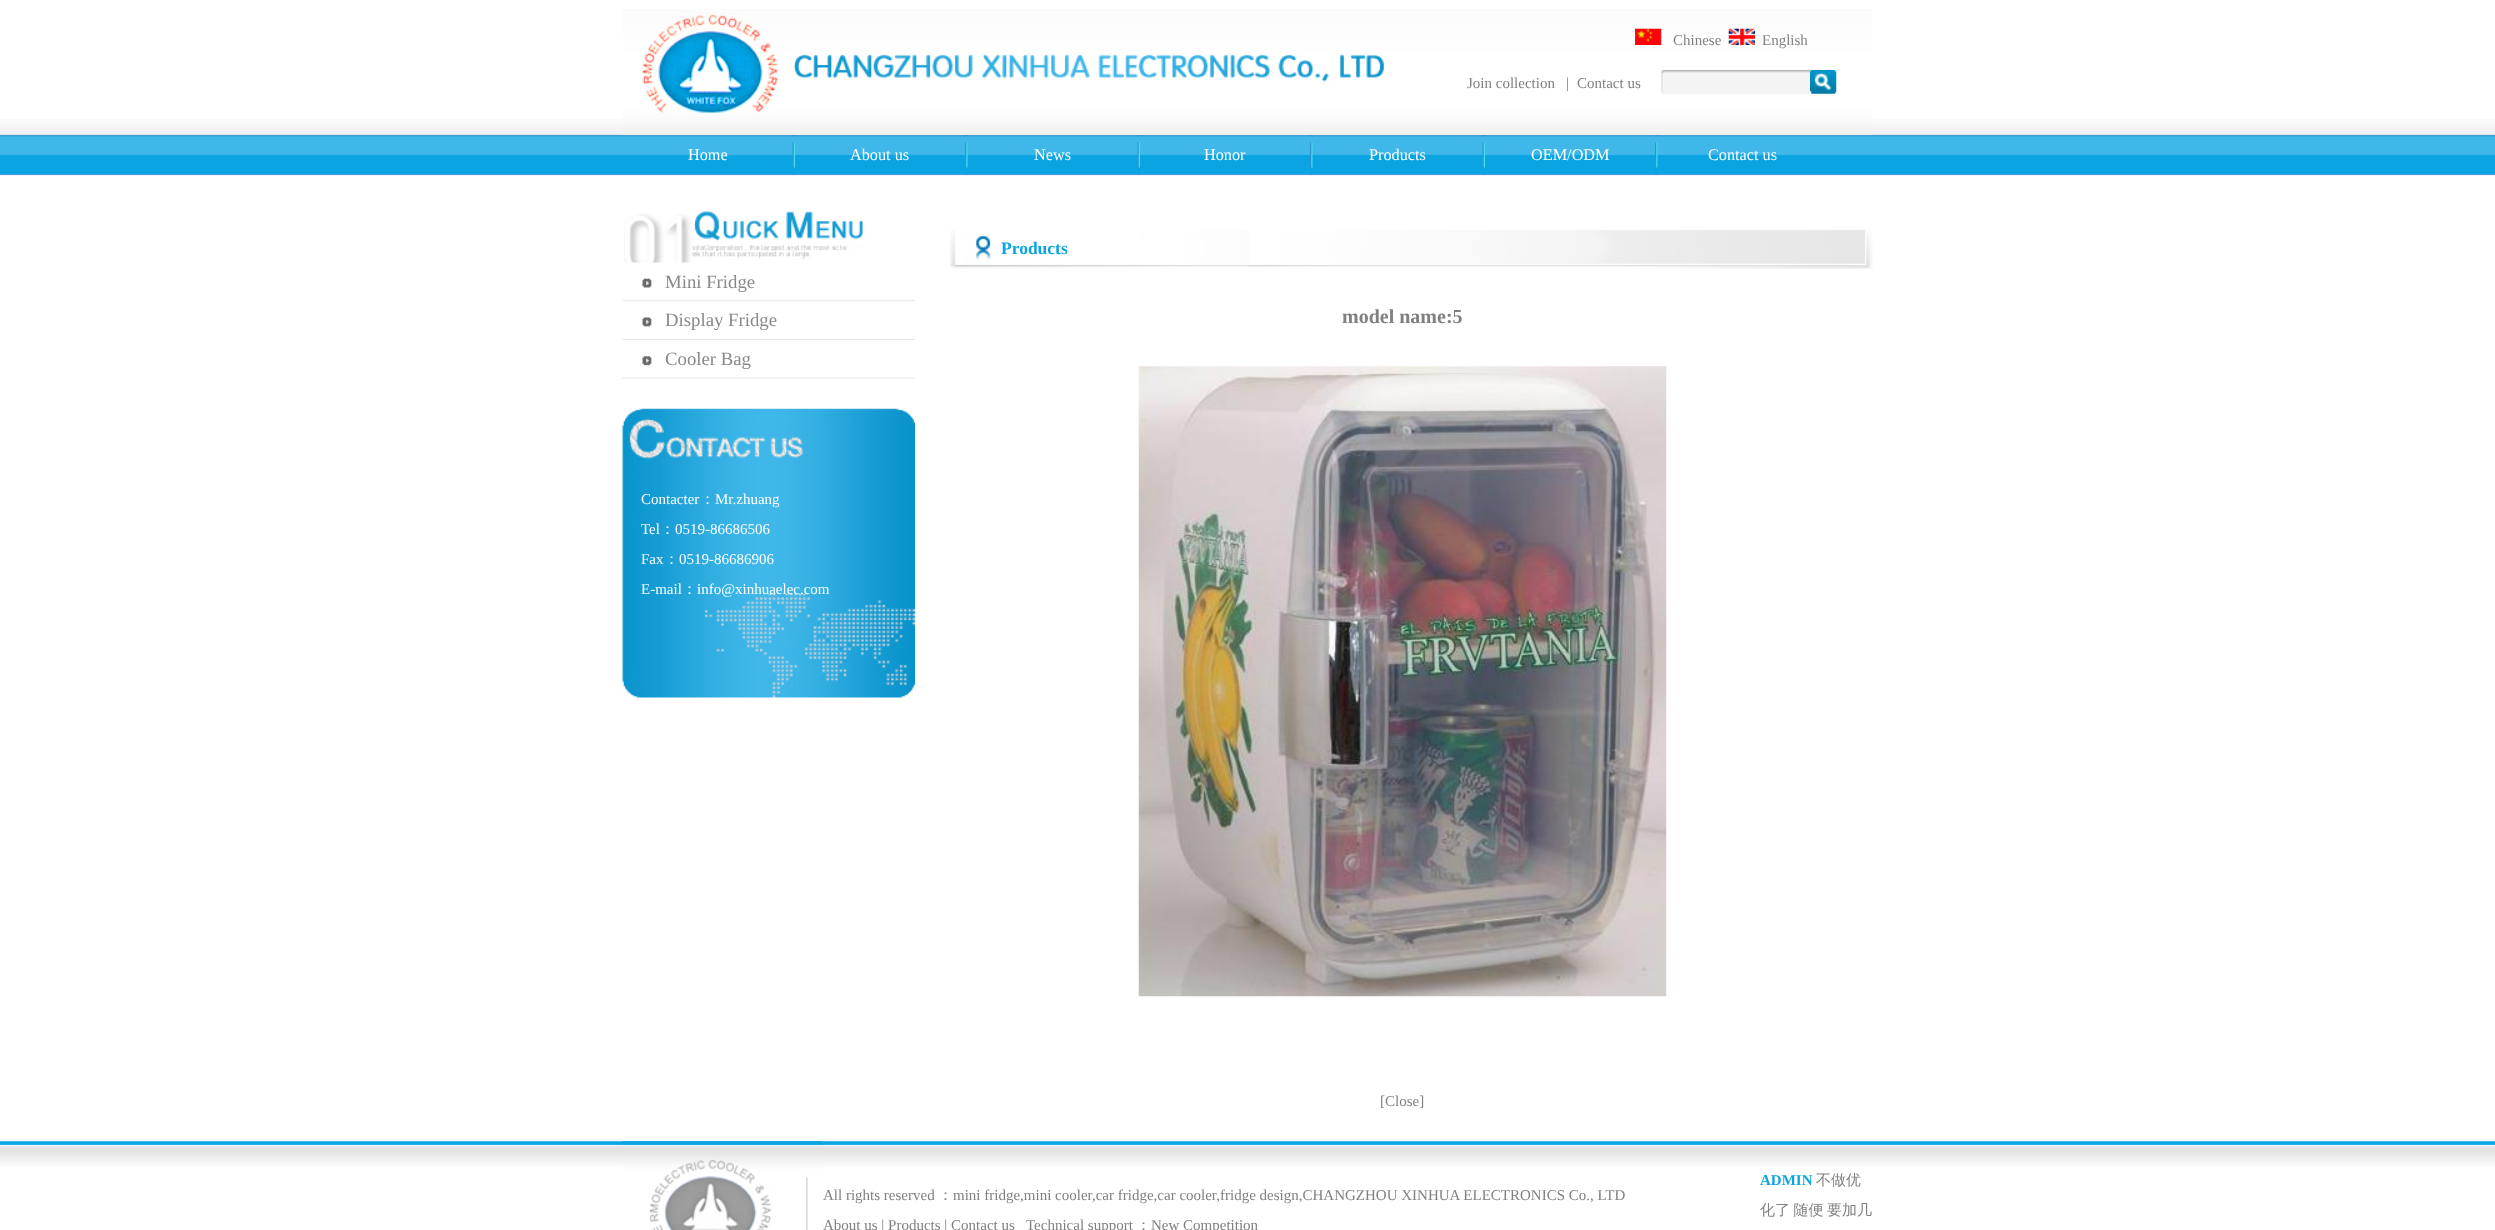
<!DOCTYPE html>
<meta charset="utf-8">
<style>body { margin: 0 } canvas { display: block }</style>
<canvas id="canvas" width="2495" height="1230"></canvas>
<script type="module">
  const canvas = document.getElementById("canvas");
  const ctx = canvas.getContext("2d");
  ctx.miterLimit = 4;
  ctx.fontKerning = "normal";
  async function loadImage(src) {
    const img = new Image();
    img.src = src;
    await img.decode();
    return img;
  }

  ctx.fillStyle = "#ffffff";
  ctx.fillRect(0, 0, 2495, 1230);
  ctx.drawImage(await loadImage("img1.png"), 0, 119, 2495, 57);
  ctx.drawImage(await loadImage("img2.png"), 622, 9, 1251, 126);
  ctx.drawImage(await loadImage("img3.png"), 1635, 28, 27, 17);
  ctx.font = "15px Liberation Serif";
  ctx.fillStyle = "#808080";
  ctx.fillText("Chinese", 1673, 45);
  ctx.drawImage(await loadImage("img4.png"), 1728, 28, 27, 17);
  ctx.fillText("English", 1762, 45);
  ctx.fillText("Join collection", 1467, 88);
  ctx.fillText("|", 1566, 88);
  ctx.fillText("Contact us", 1577, 88);
  ctx.drawImage(await loadImage("img5.png"), 1661, 70, 176, 24);
  ctx.drawImage(await loadImage("img6.png"), 1810, 71, 22, 21);
  ctx.font = "16.25px Liberation Serif";
  ctx.fillStyle = "#ffffff";
  ctx.fillText("Home", 688, 160);
  ctx.drawImage(await loadImage("img7.png"), 792, 135, 3, 40);
  ctx.fillText("About us", 850, 160);
  ctx.drawImage(await loadImage("img8.png"), 965, 135, 3, 40);
  ctx.fillText("News", 1034, 160);
  ctx.drawImage(await loadImage("img9.png"), 1137, 135, 3, 40);
  ctx.fillText("Honor", 1204, 160);
  ctx.drawImage(await loadImage("img8.png"), 1310, 135, 3, 40);
  ctx.fillText("Products", 1369, 160);
  ctx.drawImage(await loadImage("img9.png"), 1482, 135, 3, 40);
  ctx.fillText("OEM/ODM", 1531, 160);
  ctx.drawImage(await loadImage("img8.png"), 1655, 135, 3, 40);
  ctx.fillText("Contact us", 1708, 160);
  ctx.drawImage(await loadImage("img10.png"), 624, 211, 239, 52);
  ctx.drawImage(await loadImage("img11.png"), 622, 262, 293, 40);
  ctx.font = "18.75px Liberation Serif";
  ctx.fillStyle = "#898989";
  ctx.fillText("Mini Fridge", 665, 288);
  ctx.drawImage(await loadImage("img12.png"), 622, 317, 293, 23);
  ctx.fillText("Display Fridge", 665, 326);
  ctx.drawImage(await loadImage("img13.png"), 622, 356, 293, 23);
  ctx.fillText("Cooler Bag", 665, 365);
  ctx.drawImage(await loadImage("img14.png"), 622, 408, 293, 290);
  ctx.font = "15px Liberation Serif";
  ctx.fillStyle = "#ffffff";
  ctx.fillText("Contacter", 641, 504);
  ctx.font = "500 15px WenQuanYi Zen Hei";
  ctx.fillText("：", 700, 504);
  ctx.font = "15px Liberation Serif";
  ctx.fillText("Mr.zhuang", 715, 504);
  ctx.fillText("Tel", 641, 534);
  ctx.font = "500 15px WenQuanYi Zen Hei";
  ctx.fillText("：", 660, 534);
  ctx.font = "15px Liberation Serif";
  ctx.fillText("0519-86686506", 675, 534);
  ctx.fillText("Fax", 641, 564);
  ctx.font = "500 15px WenQuanYi Zen Hei";
  ctx.fillText("：", 664, 564);
  ctx.font = "15px Liberation Serif";
  ctx.fillText("0519-86686906", 679, 564);
  ctx.fillText("E-mail", 641, 594);
  ctx.font = "500 15px WenQuanYi Zen Hei";
  ctx.fillText("：", 682, 594);
  ctx.font = "15px Liberation Serif";
  ctx.fillText("info@xinhuaelec.com", 697, 594);
  ctx.drawImage(await loadImage("img15.png"), 950, 229, 923, 40);
  ctx.font = "bold 17.5px Liberation Serif";
  ctx.fillStyle = "#0ba4e3";
  ctx.fillText("Products", 1001, 254);
  ctx.font = "bold 20px Liberation Serif";
  ctx.fillStyle = "#808080";
  ctx.fillText("model name:5", 1342, 323);
  ctx.drawImage(await loadImage("img16.png"), 1138, 366, 529, 631);
  ctx.font = "15px Liberation Serif";
  ctx.fillText("[Close]", 1380, 1106);
  ctx.drawImage(await loadImage("img17.png"), 0, 1141, 2495, 25);
  ctx.drawImage(await loadImage("img18.png"), 622, 1141, 201, 89);
  ctx.fillText("All rights reserved", 823, 1200);
  ctx.font = "500 15px WenQuanYi Zen Hei";
  ctx.fillText("：", 938, 1200);
  ctx.font = "15px Liberation Serif";
  ctx.fillText("mini fridge,mini cooler,car fridge,car cooler,fridge design,CHANGZHOU XINHUA ELECTRONICS Co., LTD", 953, 1200);
  ctx.fillText("About us | Products | Contact us", 823, 1230);
  ctx.fillText("Technical support", 1026, 1230);
  ctx.font = "500 15px WenQuanYi Zen Hei";
  ctx.fillText("：", 1136, 1230);
  ctx.font = "15px Liberation Serif";
  ctx.fillText("New Competition", 1151, 1230);
  ctx.font = "bold 15px Liberation Serif";
  ctx.fillStyle = "#0ba4e3";
  ctx.fillText("ADMIN", 1760, 1185);
  ctx.font = "500 15px WenQuanYi Zen Hei";
  ctx.fillStyle = "#808080";
  ctx.fillText("不做优", 1816, 1185);
  ctx.wordSpacing = "-1px";
  ctx.fillText("化了 随便 要加几", 1760, 1215);
</script>
